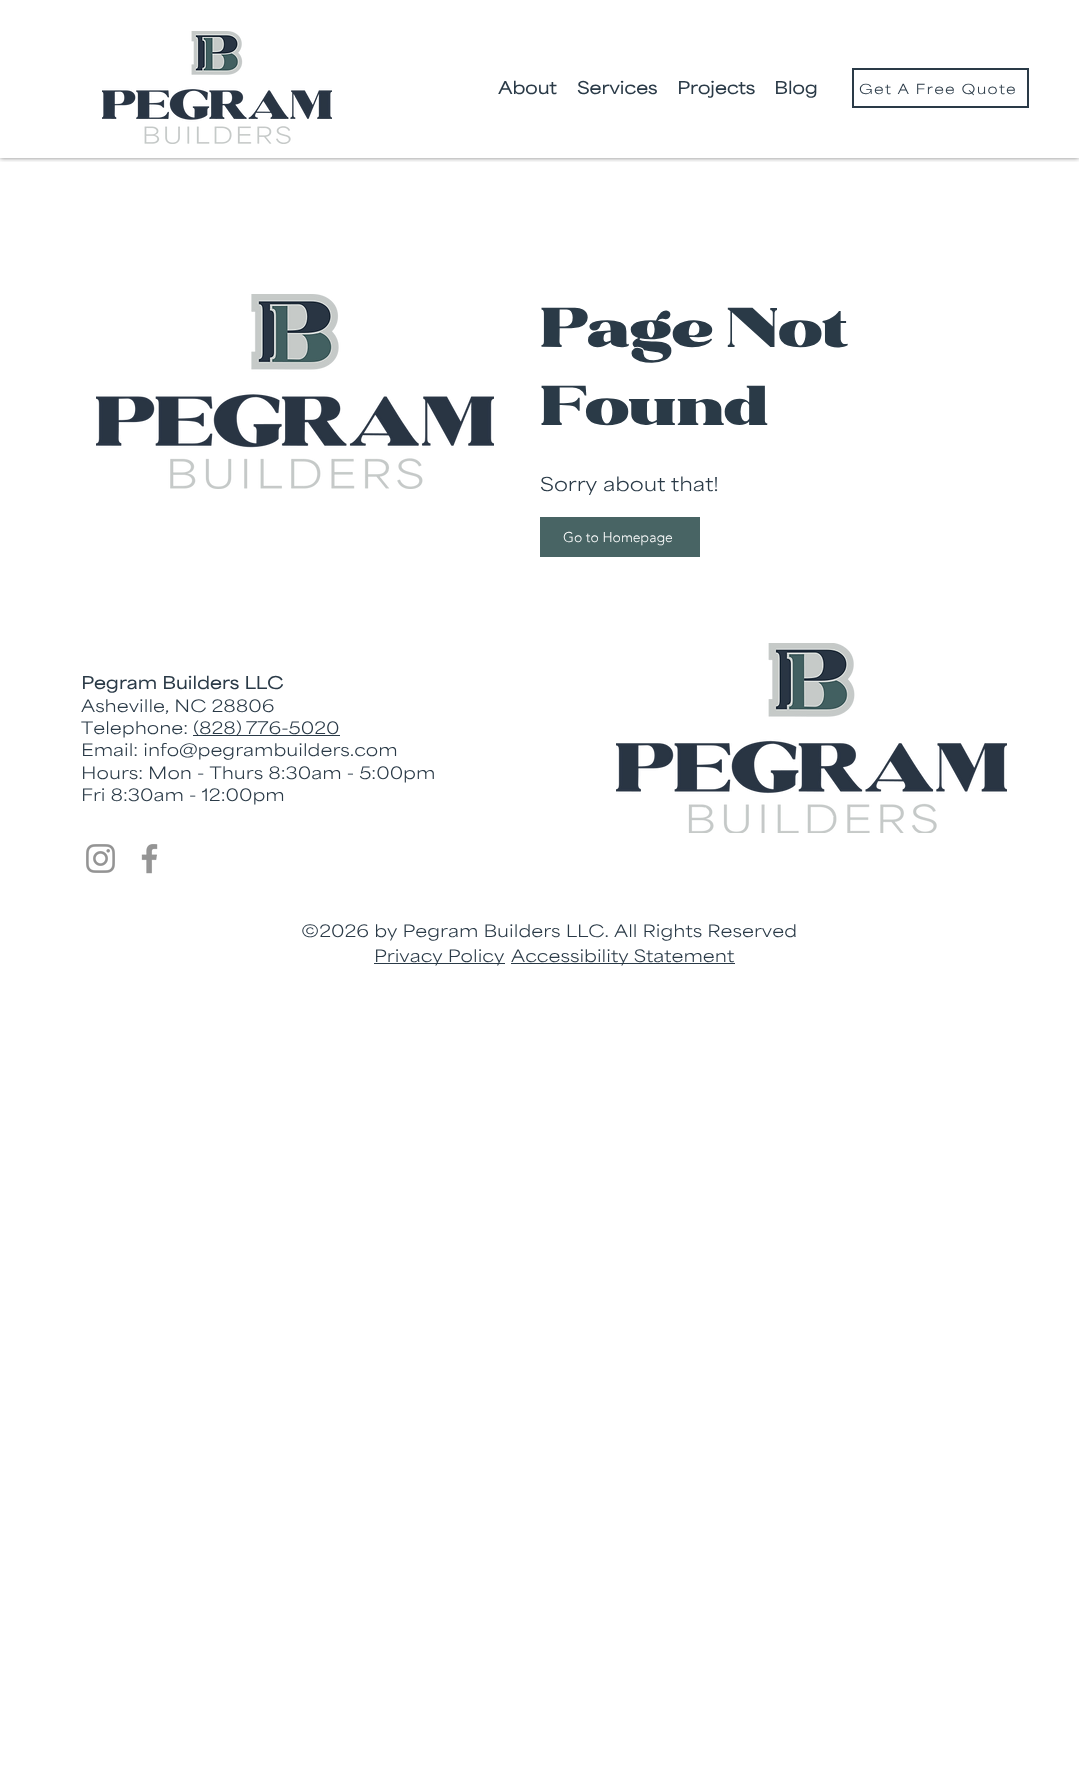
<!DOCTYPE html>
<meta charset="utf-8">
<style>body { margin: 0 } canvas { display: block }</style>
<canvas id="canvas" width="1079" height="1791"></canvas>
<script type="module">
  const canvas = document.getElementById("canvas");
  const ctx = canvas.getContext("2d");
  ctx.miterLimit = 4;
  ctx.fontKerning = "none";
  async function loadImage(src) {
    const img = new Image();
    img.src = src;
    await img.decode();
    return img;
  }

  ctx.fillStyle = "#ffffff";
  ctx.fillRect(0, 0, 1079, 1791);
  ctx.save();
  ctx.beginPath();
  ctx.rect(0, 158, 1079, 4);
  ctx.clip();
  ctx.fillStyle = "rgba(0, 0, 0, 0.5)";
  ctx.filter = "blur(2.5px)";
  ctx.beginPath();
  ctx.rect(0, 0, 1079, 158);
  ctx.fill();
  ctx.filter = "none";
  ctx.restore();
  ctx.drawImage(await loadImage("img1.png"), 102, 31, 230, 113);
  ctx.font = "bold 16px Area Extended";
  ctx.fillStyle = "#2a3a47";
  ctx.fillText("About", 498, 94);
  ctx.fillText("Services", 577, 94);
  ctx.fillText("Projects", 677, 94);
  ctx.fillText("Blog", 774, 94);
  ctx.strokeStyle = "#2a3a47";
  ctx.lineWidth = 2;
  ctx.strokeRect(853, 69, 175, 38);
  ctx.letterSpacing = "1.25px";
  ctx.font = "13px Area Extended";
  ctx.fillText("Get A Free Quote", 859, 94);
  ctx.drawImage(await loadImage("img2.png"), 96, 294, 398, 195);
  ctx.letterSpacing = "0px";
  ctx.font = "56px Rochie";
  ctx.fillText("Page Not", 540, 347);
  ctx.fillText("Found", 540, 425);
  ctx.font = "18px Area Extended";
  ctx.fillText("Sorry about that!", 540, 491);
  ctx.fillStyle = "#486464";
  ctx.fillRect(540, 517, 160, 40);
  ctx.font = "300 14px 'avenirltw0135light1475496'";
  ctx.fillStyle = "#ffffff";
  ctx.fillText("Go to Homepage", 563, 542);
  ctx.font = "bold 16px Area Extended";
  ctx.fillStyle = "#2a3a47";
  ctx.fillText("Pegram Builders LLC", 81, 689);
  ctx.font = "16px Area Extended";
  ctx.fillText("Asheville, NC 28806", 81, 712);
  ctx.fillText("Telephone:", 81, 734);
  ctx.wordSpacing = "-1px";
  ctx.fillText("(828) 776-5020", 193, 734);
  ctx.fillRect(193, 735, 147, 1);
  ctx.wordSpacing = "0px";
  ctx.fillText("Email: info@pegrambuilders.com", 81, 756);
  ctx.fillText("Hours: Mon - Thurs 8:30am - 5:00pm", 81, 779);
  ctx.fillText("Fri 8:30am - 12:00pm", 81, 801);
  ctx.drawImage(await loadImage("img3.png"), 616, 643, 391, 190);
  ctx.drawImage(await loadImage("img4.png"), 86, 844, 29, 29);
  ctx.drawImage(await loadImage("img5.png"), 141, 844, 17, 30);
  ctx.fillText("©2026 by Pegram Builders LLC.", 301, 937);
  ctx.fillText("All Rights Reserved", 614, 937);
  ctx.fillRect(374, 963, 131, 1);
  ctx.fillText("Privacy Policy", 374, 962);
  ctx.fillRect(511, 963, 224, 1);
  ctx.fillText("Accessibility Statement", 511, 962);
</script>
